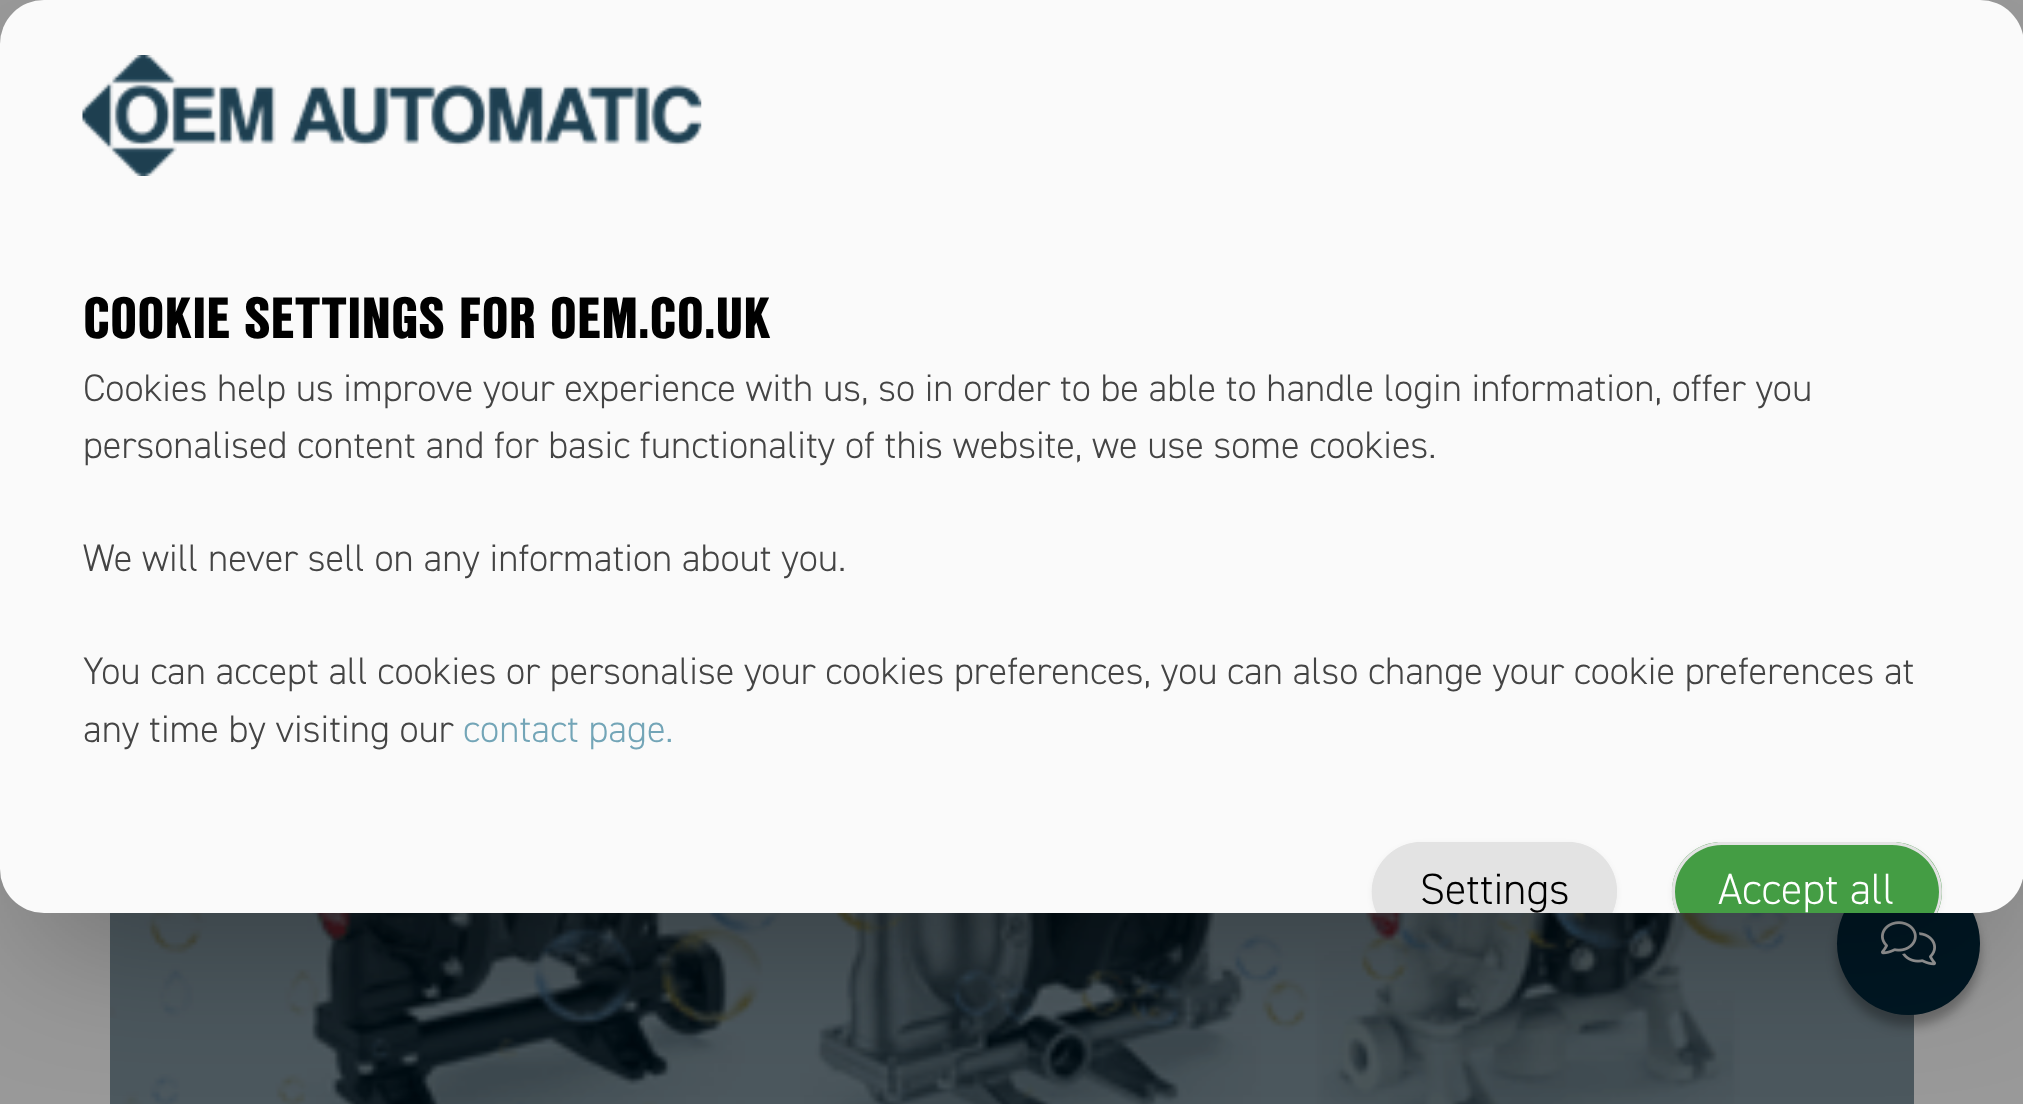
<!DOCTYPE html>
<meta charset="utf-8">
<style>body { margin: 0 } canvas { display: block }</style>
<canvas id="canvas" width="2023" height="1104"></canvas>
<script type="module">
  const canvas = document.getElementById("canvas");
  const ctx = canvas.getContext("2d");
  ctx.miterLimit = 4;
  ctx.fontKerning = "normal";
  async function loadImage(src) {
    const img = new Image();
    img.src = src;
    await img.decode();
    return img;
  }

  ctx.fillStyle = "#999999";
  ctx.fillRect(0, 0, 2023, 1104);
  ctx.drawImage(await loadImage("img3.png"), 110, 913, 1804, 191);
  ctx.fillStyle = "rgba(0, 0, 0, 0.3)";
  ctx.filter = "blur(5.5px)";
  ctx.beginPath();
  ctx.roundRect(1837, 883, 143, 143, 71.5);
  ctx.fill();
  ctx.filter = "none";
  ctx.fillStyle = "#001723";
  ctx.beginPath();
  ctx.arc(1908.5, 943.5, 71.5, 0, Math.PI * 2);
  ctx.fill();
  ctx.drawImage(await loadImage("img2.png"), 1881, 921, 55, 45);
  ctx.fillStyle = "rgba(0, 0, 0, 0.25)";
  ctx.filter = "blur(69px)";
  ctx.beginPath();
  ctx.roundRect(33, 102, 1958, 847, 11);
  ctx.fill();
  ctx.filter = "none";
  ctx.fillStyle = "#fafafa";
  ctx.beginPath();
  ctx.roundRect(0, 0, 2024, 913, 44);
  ctx.fill();
  ctx.drawImage(await loadImage("img1.png"), 82, 55, 620, 121);
  ctx.font = "900 56.4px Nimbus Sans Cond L";
  ctx.fillStyle = "#000000";
  ctx.fillText("COOKIE SETTINGS FOR OEM.CO.UK", 83, 338);
  ctx.font = "300 38.5px 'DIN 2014'";
  ctx.fillStyle = "#444444";
  ctx.fillText("Cookies help us improve your experience with us, so in order to be able to handle login information, offer you", 83, 401);
  ctx.fillText("personalised content and for basic functionality of this website, we use some cookies.", 83, 458);
  ctx.fillText("We will never sell on any information about you.", 83, 571);
  ctx.fillText("You can accept all cookies or personalise your cookies preferences, you can also change your cookie preferences at", 83, 684);
  ctx.fillText("any time by visiting our", 83, 742);
  ctx.fillStyle = "#73a5b7";
  ctx.fillText("contact page.", 463, 742);
  ctx.save();
  ctx.beginPath();
  ctx.roundRect(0, 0, 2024, 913, 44);
  ctx.clip();
  ctx.fillStyle = "rgba(0, 0, 0, 0.05)";
  ctx.filter = "blur(3px)";
  ctx.beginPath();
  ctx.roundRect(1372, 844, 245, 99, 49.5);
  ctx.fill();
  ctx.filter = "none";
  ctx.restore();
  ctx.save();
  ctx.beginPath();
  ctx.roundRect(0, 0, 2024, 913, 44);
  ctx.clip();
  ctx.fillStyle = "#e3e3e3";
  ctx.beginPath();
  ctx.roundRect(1372, 842, 245, 99, 49.5);
  ctx.fill();
  ctx.restore();
  ctx.fillStyle = "#e3e3e3";
  ctx.beginPath();
  ctx.moveTo(1422, 842);
  ctx.bezierCurveTo(1385, 842, 1361, 881, 1377, 913);
  ctx.lineTo(1380, 913);
  ctx.bezierCurveTo(1377, 907, 1375, 899, 1375, 892);
  ctx.bezierCurveTo(1375, 866, 1396, 845, 1422, 845);
  ctx.lineTo(1568, 845);
  ctx.bezierCurveTo(1593, 845, 1614, 866, 1614, 892);
  ctx.bezierCurveTo(1614, 899, 1612, 907, 1609, 913);
  ctx.lineTo(1612, 913);
  ctx.bezierCurveTo(1628, 881, 1604, 842, 1568, 842);
  ctx.closePath();
  ctx.fill();
  ctx.font = "300 44px 'DIN 2014'";
  ctx.fillStyle = "#000000";
  ctx.fillText("Settings", 1420, 904);
  ctx.save();
  ctx.beginPath();
  ctx.roundRect(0, 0, 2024, 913, 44);
  ctx.clip();
  ctx.fillStyle = "rgba(0, 0, 0, 0.05)";
  ctx.filter = "blur(3px)";
  ctx.beginPath();
  ctx.roundRect(1672, 844, 270, 99, 49.5);
  ctx.fill();
  ctx.filter = "none";
  ctx.restore();
  ctx.save();
  ctx.beginPath();
  ctx.roundRect(0, 0, 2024, 913, 44);
  ctx.clip();
  ctx.fillStyle = "#449d44";
  ctx.beginPath();
  ctx.roundRect(1672, 842, 270, 99, 49.5);
  ctx.fill();
  ctx.restore();
  ctx.fillStyle = "#e3e3e3";
  ctx.beginPath();
  ctx.moveTo(1722, 842);
  ctx.bezierCurveTo(1685, 842, 1661, 881, 1677, 913);
  ctx.lineTo(1680, 913);
  ctx.bezierCurveTo(1677, 907, 1675, 899, 1675, 892);
  ctx.bezierCurveTo(1675, 866, 1696, 845, 1722, 845);
  ctx.lineTo(1892, 845);
  ctx.bezierCurveTo(1918, 845, 1939, 866, 1939, 892);
  ctx.bezierCurveTo(1939, 899, 1937, 907, 1934, 913);
  ctx.lineTo(1937, 913);
  ctx.bezierCurveTo(1953, 881, 1929, 842, 1892, 842);
  ctx.closePath();
  ctx.fill();
  ctx.fillStyle = "#ffffff";
  ctx.fillText("Accept all", 1718, 904);
</script>
